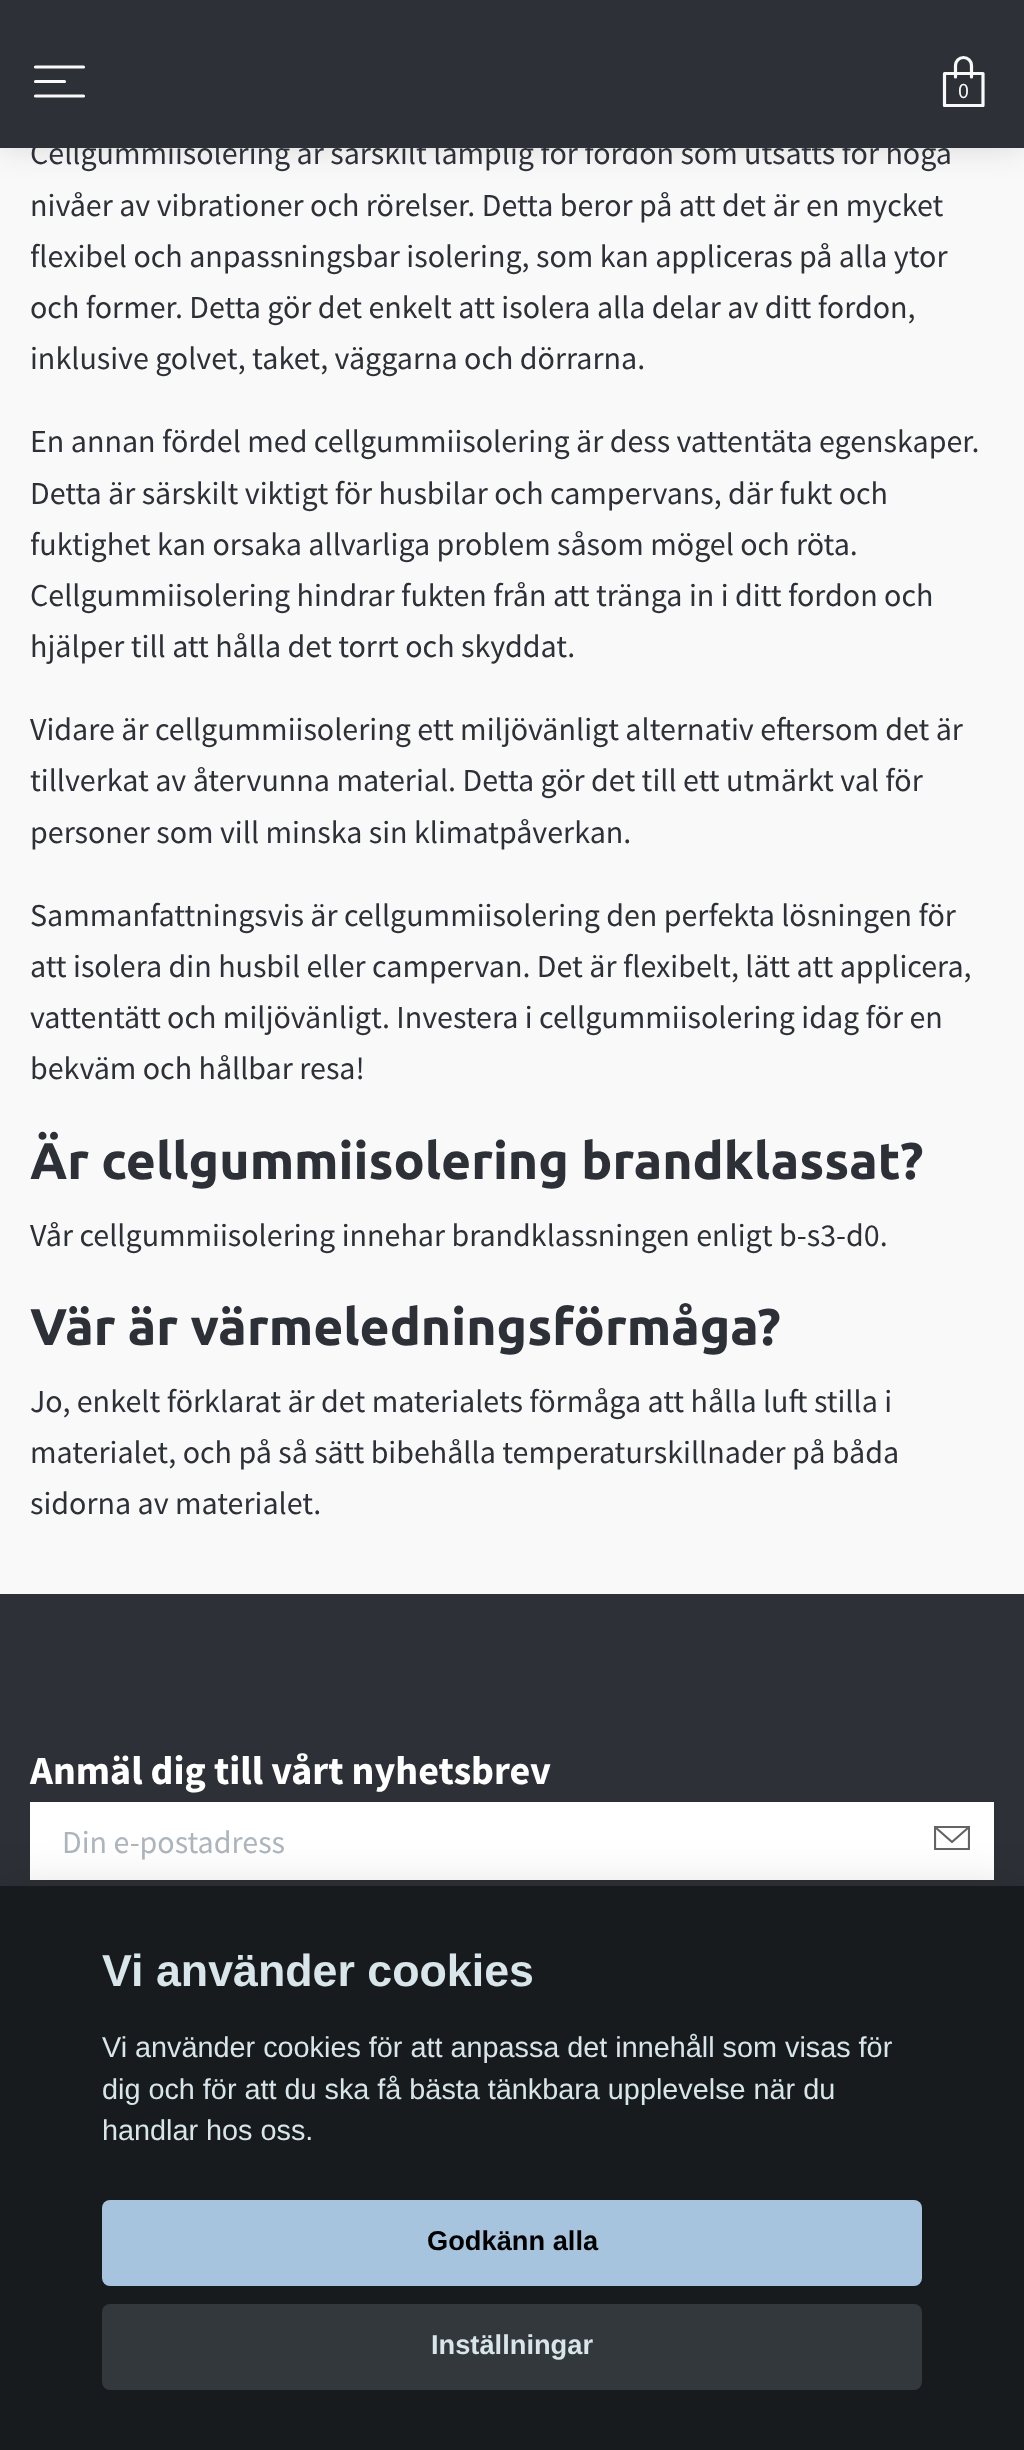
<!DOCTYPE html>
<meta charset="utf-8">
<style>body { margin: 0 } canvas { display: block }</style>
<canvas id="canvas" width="1024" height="2450"></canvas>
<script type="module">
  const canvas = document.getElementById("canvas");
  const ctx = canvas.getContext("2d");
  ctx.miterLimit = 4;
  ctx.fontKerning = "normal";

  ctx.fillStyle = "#f9f9fa";
  ctx.fillRect(0, 0, 1024, 2450);
  ctx.fillStyle = "rgba(34, 34, 34, 0.15)";
  ctx.filter = "blur(16px)";
  ctx.beginPath();
  ctx.rect(0, 0, 1024, 148);
  ctx.fill();
  ctx.filter = "none";
  ctx.font = "32px Source Sans Pro";
  ctx.fillStyle = "#2e3038";
  ctx.fillText("Cellgummiisolering är särskilt lämplig för fordon som utsätts för höga", 30, 164);
  ctx.fillStyle = "#2e3037";
  ctx.fillRect(0, 0, 1024, 148);
  ctx.beginPath();
  ctx.moveTo(35.5, 67);
  ctx.lineTo(83.5, 67);
  ctx.moveTo(35.5, 81.5);
  ctx.lineTo(64.5, 81.5);
  ctx.moveTo(35.5, 96);
  ctx.lineTo(83.5, 96);
  ctx.strokeStyle = "#f9f9f9";
  ctx.lineWidth = 3.2;
  ctx.lineCap = "round";
  ctx.lineJoin = "round";
  ctx.stroke();
  ctx.save();
  ctx.beginPath();
  ctx.rect(938, 56, 51, 51);
  ctx.clip();
  ctx.beginPath();
  ctx.moveTo(944.5, 73.5);
  ctx.lineTo(983, 73.5);
  ctx.lineTo(983, 105.5);
  ctx.lineTo(944.5, 105.5);
  ctx.closePath();
  ctx.stroke();
  ctx.restore();
  ctx.beginPath();
  ctx.moveTo(955.5, 77);
  ctx.lineTo(955.5, 65.5);
  ctx.bezierCurveTo(955.5, 61, 959, 57.5, 963.5, 57.5);
  ctx.bezierCurveTo(968, 57.5, 971.5, 61, 971.5, 65.5);
  ctx.lineTo(971.5, 77);
  ctx.stroke();
  ctx.font = "22px Source Sans Pro";
  ctx.fillStyle = "#f9f9f9";
  ctx.fillText("0", 958, 98);
  ctx.font = "32px Source Sans Pro";
  ctx.fillStyle = "#2e3038";
  ctx.fillText("nivåer av vibrationer och rörelser. Detta beror på att det är en mycket", 30, 216);
  ctx.fillText("flexibel och anpassningsbar isolering, som kan appliceras på alla ytor", 30, 267);
  ctx.fillText("och former. Detta gör det enkelt att isolera alla delar av ditt fordon,", 30, 318);
  ctx.fillText("inklusive golvet, taket, väggarna och dörrarna.", 30, 369);
  ctx.fillText("En annan fördel med cellgummiisolering är dess vattentäta egenskaper.", 30, 452);
  ctx.fillText("Detta är särskilt viktigt för husbilar och campervans, där fukt och", 30, 504);
  ctx.fillText("fuktighet kan orsaka allvarliga problem såsom mögel och röta.", 30, 555);
  ctx.fillText("Cellgummiisolering hindrar fukten från att tränga in i ditt fordon och", 30, 606);
  ctx.fillText("hjälper till att hålla det torrt och skyddat.", 30, 657);
  ctx.fillText("Vidare är cellgummiisolering ett miljövänligt alternativ eftersom det är", 30, 740);
  ctx.fillText("tillverkat av återvunna material. Detta gör det till ett utmärkt val för", 30, 791);
  ctx.fillText("personer som vill minska sin klimatpåverkan.", 30, 843);
  ctx.fillText("Sammanfattningsvis är cellgummiisolering den perfekta lösningen för", 30, 926);
  ctx.fillText("att isolera din husbil eller campervan. Det är flexibelt, lätt att applicera,", 30, 977);
  ctx.fillText("vattentätt och miljövänligt. Investera i cellgummiisolering idag för en", 30, 1028);
  ctx.fillText("bekväm och hållbar resa!", 30, 1079);
  ctx.font = "bold 51.6px Ubuntu";
  ctx.fillText("Är cellgummiisolering brandklassat?", 30, 1179);
  ctx.font = "32px Source Sans Pro";
  ctx.fillText("Vår cellgummiisolering innehar brandklassningen enligt b-s3-d0.", 30, 1246);
  ctx.font = "bold 51.6px Ubuntu";
  ctx.fillText("Vär är värmeledningsförmåga?", 30, 1345);
  ctx.font = "32px Source Sans Pro";
  ctx.fillText("Jo, enkelt förklarat är det materialets förmåga att hålla luft stilla i", 30, 1412);
  ctx.fillText("materialet, och på så sätt bibehålla temperaturskillnader på båda", 30, 1463);
  ctx.fillText("sidorna av materialet.", 30, 1514);
  ctx.fillStyle = "#2e3037";
  ctx.fillRect(0, 1594, 1024, 292);
  ctx.font = "bold 40px Source Sans Pro";
  ctx.fillStyle = "#ffffff";
  ctx.fillText("Anmäl dig till vårt nyhetsbrev", 30, 1784);
  ctx.fillRect(30, 1802, 964, 78);
  ctx.font = "32px Source Sans Pro";
  ctx.fillStyle = "#adb5bd";
  ctx.fillText("Din e-postadress", 62, 1853);
  ctx.beginPath();
  ctx.moveTo(935, 1827);
  ctx.lineTo(952, 1842);
  ctx.lineTo(969, 1827);
  ctx.strokeStyle = "#646464";
  ctx.lineWidth = 2.2;
  ctx.stroke();
  ctx.save();
  ctx.beginPath();
  ctx.rect(934, 1820, 36, 36);
  ctx.clip();
  ctx.beginPath();
  ctx.moveTo(935, 1827);
  ctx.lineTo(969, 1827);
  ctx.lineTo(969, 1849);
  ctx.lineTo(935, 1849);
  ctx.closePath();
  ctx.stroke();
  ctx.restore();
  ctx.fillStyle = "rgba(2, 2, 3, 0.28)";
  ctx.filter = "blur(30px)";
  ctx.beginPath();
  ctx.rect(0, 1906, 1024, 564);
  ctx.fill();
  ctx.filter = "none";
  ctx.fillStyle = "#181b1d";
  ctx.fillRect(0, 1886, 1024, 564);
  ctx.font = "bold 44.75px Liberation Sans";
  ctx.fillStyle = "#d8e5ea";
  ctx.fillText("Vi använder cookies", 102, 1986);
  ctx.font = "28.8px Liberation Sans";
  ctx.fillText("Vi använder cookies för att anpassa det innehåll som visas för", 102, 2057);
  ctx.fillText("dig och för att du ska få bästa tänkbara upplevelse när du", 102, 2099);
  ctx.fillText("handlar hos oss.", 102, 2140);
  ctx.fillStyle = "#a6c4dd";
  ctx.beginPath();
  ctx.roundRect(102, 2200, 820, 86, 8);
  ctx.fill();
  ctx.font = "bold 27.25px Liberation Sans";
  ctx.fillStyle = "#000000";
  ctx.fillText("Godkänn alla", 427, 2250);
  ctx.fillStyle = "#33383c";
  ctx.beginPath();
  ctx.roundRect(102, 2304, 820, 86, 8);
  ctx.fill();
  ctx.fillStyle = "#d8e5ea";
  ctx.fillText("Inställningar", 431, 2354);
</script>
